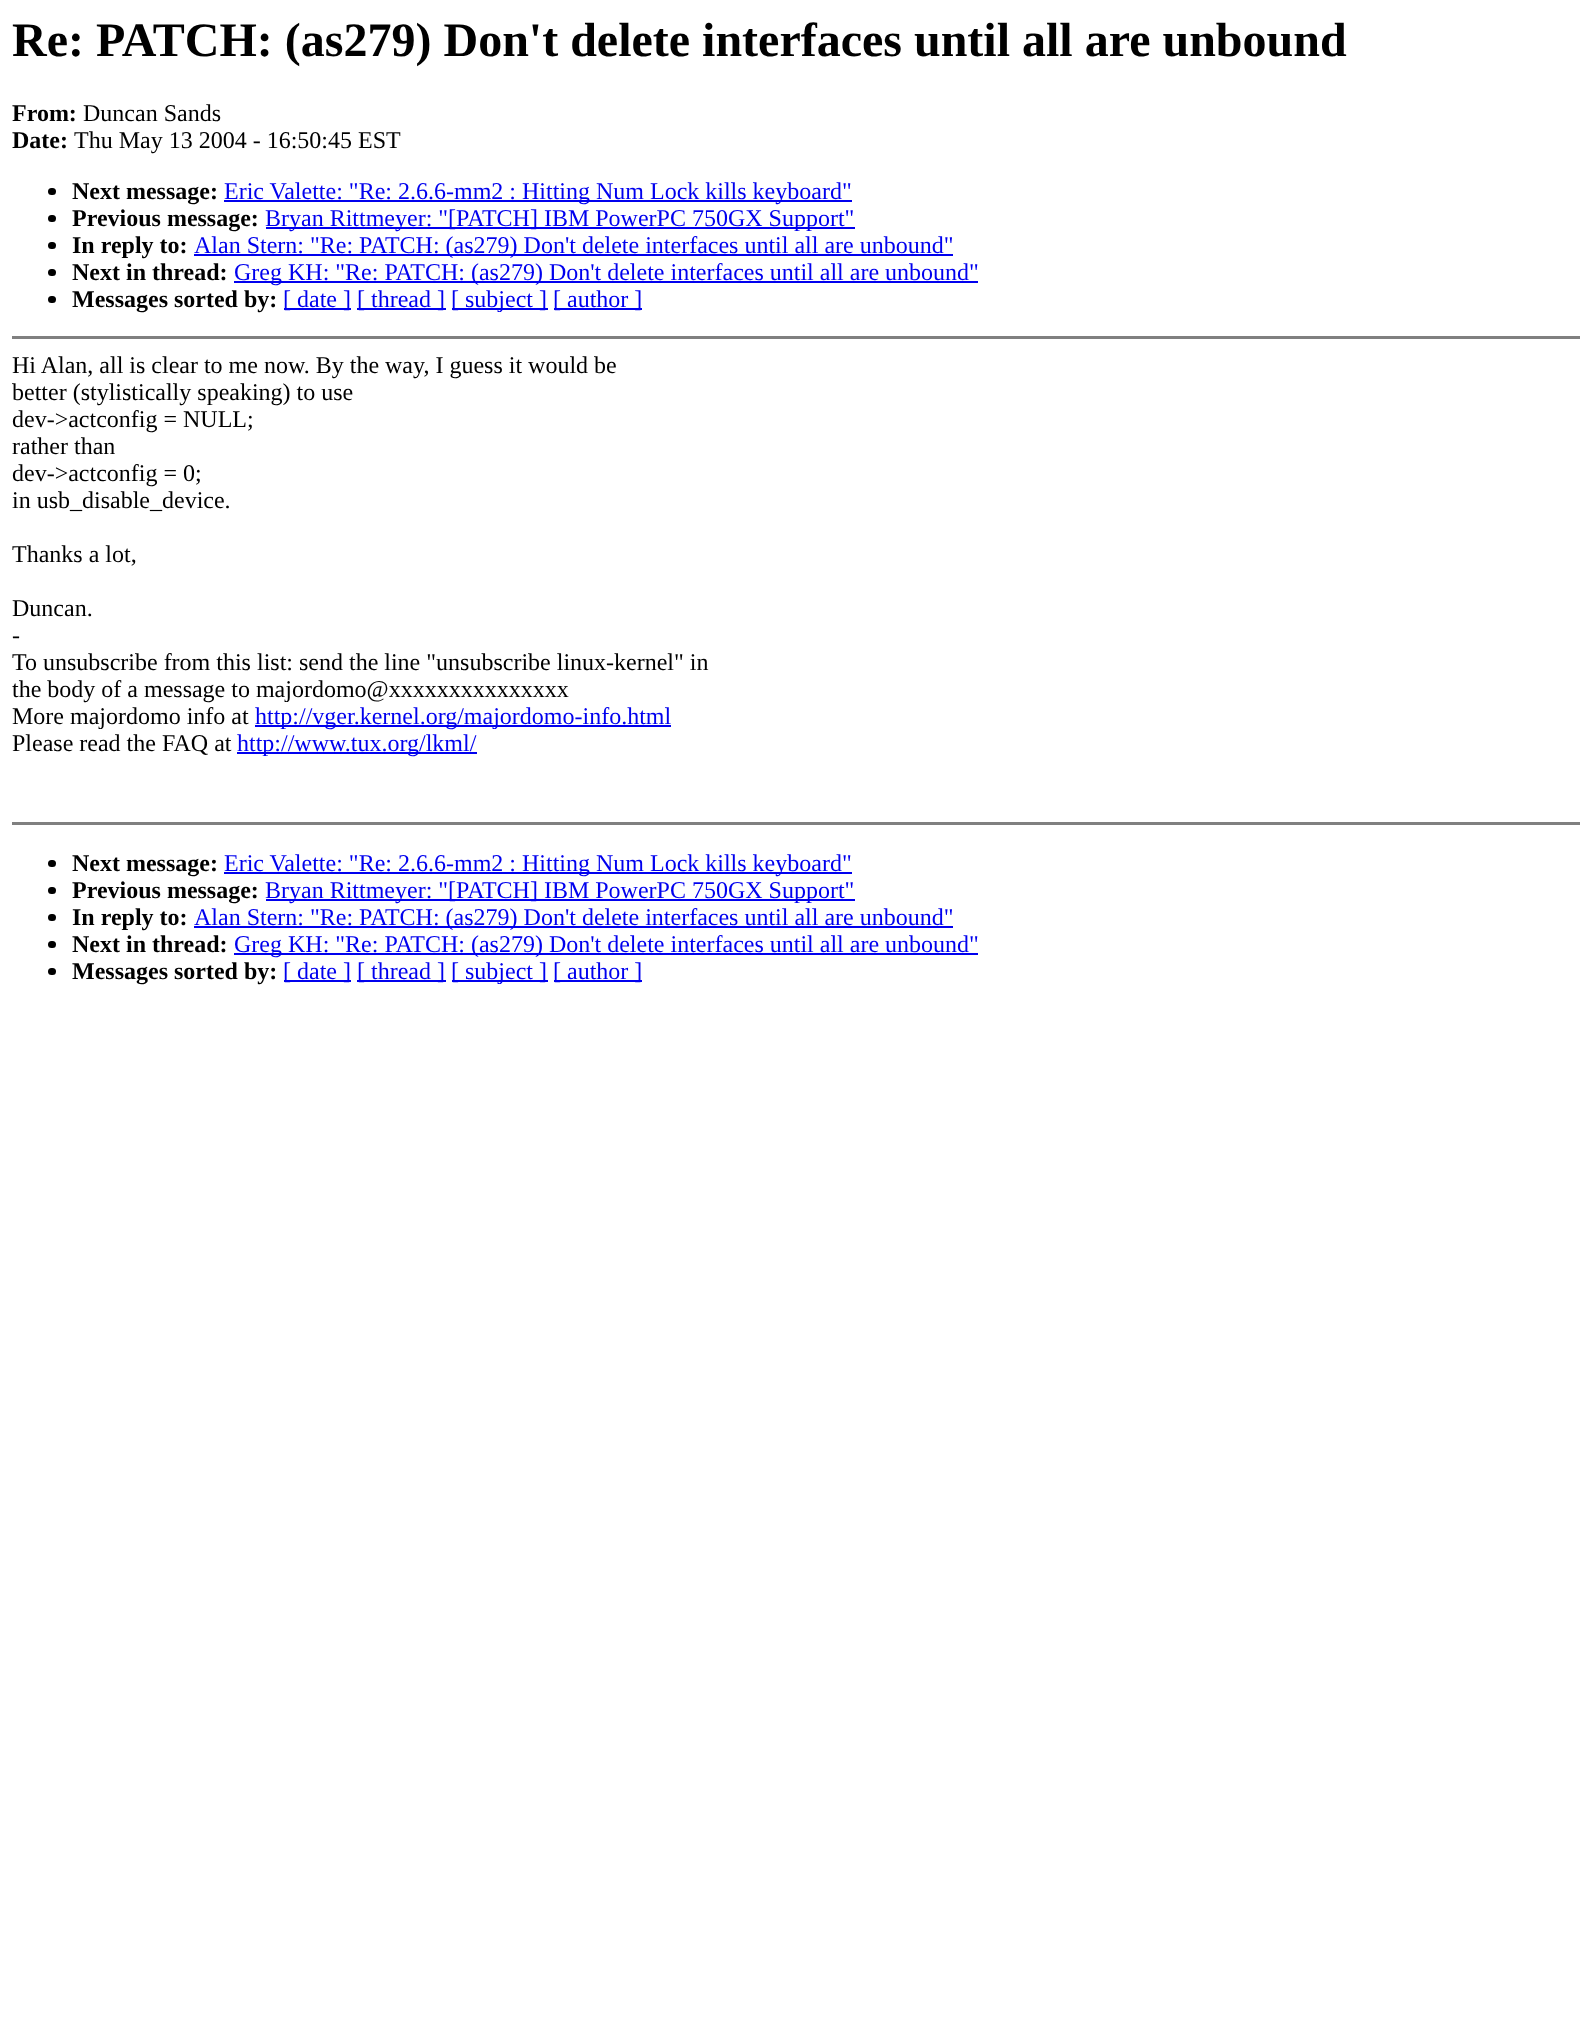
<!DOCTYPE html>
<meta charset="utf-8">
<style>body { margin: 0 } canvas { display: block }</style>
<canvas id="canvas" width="1591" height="2040"></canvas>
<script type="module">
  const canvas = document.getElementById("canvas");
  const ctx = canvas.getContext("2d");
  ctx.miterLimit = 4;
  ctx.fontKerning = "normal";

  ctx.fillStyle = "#ffffff";
  ctx.fillRect(0, 0, 1591, 2040);
  ctx.font = "bold 48px Liberation Serif";
  ctx.fillStyle = "#000000";
  ctx.fillText("Re: PATCH: (as279) Don't delete interfaces until all are unbound", 12, 56);
  ctx.font = "bold 24px Liberation Serif";
  ctx.fillText("From:", 12, 121);
  ctx.font = "24px Liberation Serif";
  ctx.fillText("Duncan Sands", 83, 121);
  ctx.font = "bold 24px Liberation Serif";
  ctx.fillText("Date:", 12, 148);
  ctx.font = "24px Liberation Serif";
  ctx.fillText("Thu May 13 2004 - 16:50:45 EST", 74, 148);
  ctx.beginPath();
  ctx.roundRect(48, 188, 8, 7, 3.5);
  ctx.fill();
  ctx.font = "bold 24px Liberation Serif";
  ctx.fillText("Next message:", 72, 199);
  ctx.fillStyle = "#0000ee";
  ctx.fillRect(224, 200, 628, 2);
  ctx.font = "24px Liberation Serif";
  ctx.fillText("Eric Valette: \"Re: 2.6.6-mm2 : Hitting Num Lock kills keyboard\"", 224, 199);
  ctx.fillStyle = "#000000";
  ctx.beginPath();
  ctx.roundRect(48, 215, 8, 7, 3.5);
  ctx.fill();
  ctx.font = "bold 24px Liberation Serif";
  ctx.fillText("Previous message:", 72, 226);
  ctx.fillStyle = "#0000ee";
  ctx.fillRect(266, 227, 589, 2);
  ctx.font = "24px Liberation Serif";
  ctx.fillText("Bryan Rittmeyer: \"[PATCH] IBM PowerPC 750GX Support\"", 265, 226);
  ctx.fillStyle = "#000000";
  ctx.beginPath();
  ctx.roundRect(48, 242, 8, 7, 3.5);
  ctx.fill();
  ctx.font = "bold 24px Liberation Serif";
  ctx.fillText("In reply to:", 72, 253);
  ctx.fillStyle = "#0000ee";
  ctx.fillRect(194, 254, 759, 2);
  ctx.font = "24px Liberation Serif";
  ctx.fillText("Alan Stern: \"Re: PATCH: (as279) Don't delete interfaces until all are unbound\"", 194, 253);
  ctx.fillStyle = "#000000";
  ctx.beginPath();
  ctx.roundRect(48, 269, 8, 7, 3.5);
  ctx.fill();
  ctx.font = "bold 24px Liberation Serif";
  ctx.fillText("Next in thread:", 72, 280);
  ctx.fillStyle = "#0000ee";
  ctx.fillRect(234, 281, 744, 2);
  ctx.font = "24px Liberation Serif";
  ctx.fillText("Greg KH: \"Re: PATCH: (as279) Don't delete interfaces until all are unbound\"", 234, 280);
  ctx.fillStyle = "#000000";
  ctx.beginPath();
  ctx.roundRect(48, 296, 8, 7, 3.5);
  ctx.fill();
  ctx.font = "bold 24px Liberation Serif";
  ctx.fillText("Messages sorted by:", 72, 307);
  ctx.fillStyle = "#0000ee";
  ctx.fillRect(284, 308, 67, 2);
  ctx.font = "24px Liberation Serif";
  ctx.fillText("[ date ]", 283, 307);
  ctx.fillRect(357, 308, 89, 2);
  ctx.fillText("[ thread ]", 357, 307);
  ctx.fillRect(452, 308, 96, 2);
  ctx.fillText("[ subject ]", 451, 307);
  ctx.fillRect(554, 308, 88, 2);
  ctx.fillText("[ author ]", 553, 307);
  ctx.fillStyle = "#808080";
  ctx.fillRect(12, 336, 1568, 3);
  ctx.fillStyle = "#000000";
  ctx.fillText("Hi Alan, all is clear to me now. By the way, I guess it would be", 12, 373);
  ctx.fillText("better (stylistically speaking) to use", 12, 400);
  ctx.fillText("dev->actconfig = NULL;", 12, 427);
  ctx.fillText("rather than", 12, 454);
  ctx.fillText("dev->actconfig = 0;", 12, 481);
  ctx.fillText("in usb_disable_device.", 12, 508);
  ctx.fillText("Thanks a lot,", 12, 562);
  ctx.fillText("Duncan.", 12, 616);
  ctx.fillText("-", 12, 643);
  ctx.fillText("To unsubscribe from this list: send the line \"unsubscribe linux-kernel\" in", 12, 670);
  ctx.fillText("the body of a message to majordomo@xxxxxxxxxxxxxxx", 12, 697);
  ctx.fillText("More majordomo info at", 12, 724);
  ctx.fillStyle = "#0000ee";
  ctx.fillRect(255, 725, 416, 2);
  ctx.fillText("http://vger.kernel.org/majordomo-info.html", 255, 724);
  ctx.fillStyle = "#000000";
  ctx.fillText("Please read the FAQ at", 12, 751);
  ctx.fillStyle = "#0000ee";
  ctx.fillRect(237, 752, 240, 2);
  ctx.fillText("http://www.tux.org/lkml/", 237, 751);
  ctx.fillStyle = "#808080";
  ctx.fillRect(12, 822, 1568, 3);
  ctx.fillStyle = "#000000";
  ctx.beginPath();
  ctx.roundRect(48, 860, 8, 7, 3.5);
  ctx.fill();
  ctx.font = "bold 24px Liberation Serif";
  ctx.fillText("Next message:", 72, 871);
  ctx.fillStyle = "#0000ee";
  ctx.fillRect(224, 872, 628, 2);
  ctx.font = "24px Liberation Serif";
  ctx.fillText("Eric Valette: \"Re: 2.6.6-mm2 : Hitting Num Lock kills keyboard\"", 224, 871);
  ctx.fillStyle = "#000000";
  ctx.beginPath();
  ctx.roundRect(48, 887, 8, 7, 3.5);
  ctx.fill();
  ctx.font = "bold 24px Liberation Serif";
  ctx.fillText("Previous message:", 72, 898);
  ctx.fillStyle = "#0000ee";
  ctx.fillRect(266, 899, 589, 2);
  ctx.font = "24px Liberation Serif";
  ctx.fillText("Bryan Rittmeyer: \"[PATCH] IBM PowerPC 750GX Support\"", 265, 898);
  ctx.fillStyle = "#000000";
  ctx.beginPath();
  ctx.roundRect(48, 914, 8, 7, 3.5);
  ctx.fill();
  ctx.font = "bold 24px Liberation Serif";
  ctx.fillText("In reply to:", 72, 925);
  ctx.fillStyle = "#0000ee";
  ctx.fillRect(194, 926, 759, 2);
  ctx.font = "24px Liberation Serif";
  ctx.fillText("Alan Stern: \"Re: PATCH: (as279) Don't delete interfaces until all are unbound\"", 194, 925);
  ctx.fillStyle = "#000000";
  ctx.beginPath();
  ctx.roundRect(48, 941, 8, 7, 3.5);
  ctx.fill();
  ctx.font = "bold 24px Liberation Serif";
  ctx.fillText("Next in thread:", 72, 952);
  ctx.fillStyle = "#0000ee";
  ctx.fillRect(234, 953, 744, 2);
  ctx.font = "24px Liberation Serif";
  ctx.fillText("Greg KH: \"Re: PATCH: (as279) Don't delete interfaces until all are unbound\"", 234, 952);
  ctx.fillStyle = "#000000";
  ctx.beginPath();
  ctx.roundRect(48, 968, 8, 7, 3.5);
  ctx.fill();
  ctx.font = "bold 24px Liberation Serif";
  ctx.fillText("Messages sorted by:", 72, 979);
  ctx.fillStyle = "#0000ee";
  ctx.fillRect(284, 980, 67, 2);
  ctx.font = "24px Liberation Serif";
  ctx.fillText("[ date ]", 283, 979);
  ctx.fillRect(357, 980, 89, 2);
  ctx.fillText("[ thread ]", 357, 979);
  ctx.fillRect(452, 980, 96, 2);
  ctx.fillText("[ subject ]", 451, 979);
  ctx.fillRect(554, 980, 88, 2);
  ctx.fillText("[ author ]", 553, 979);
</script>
